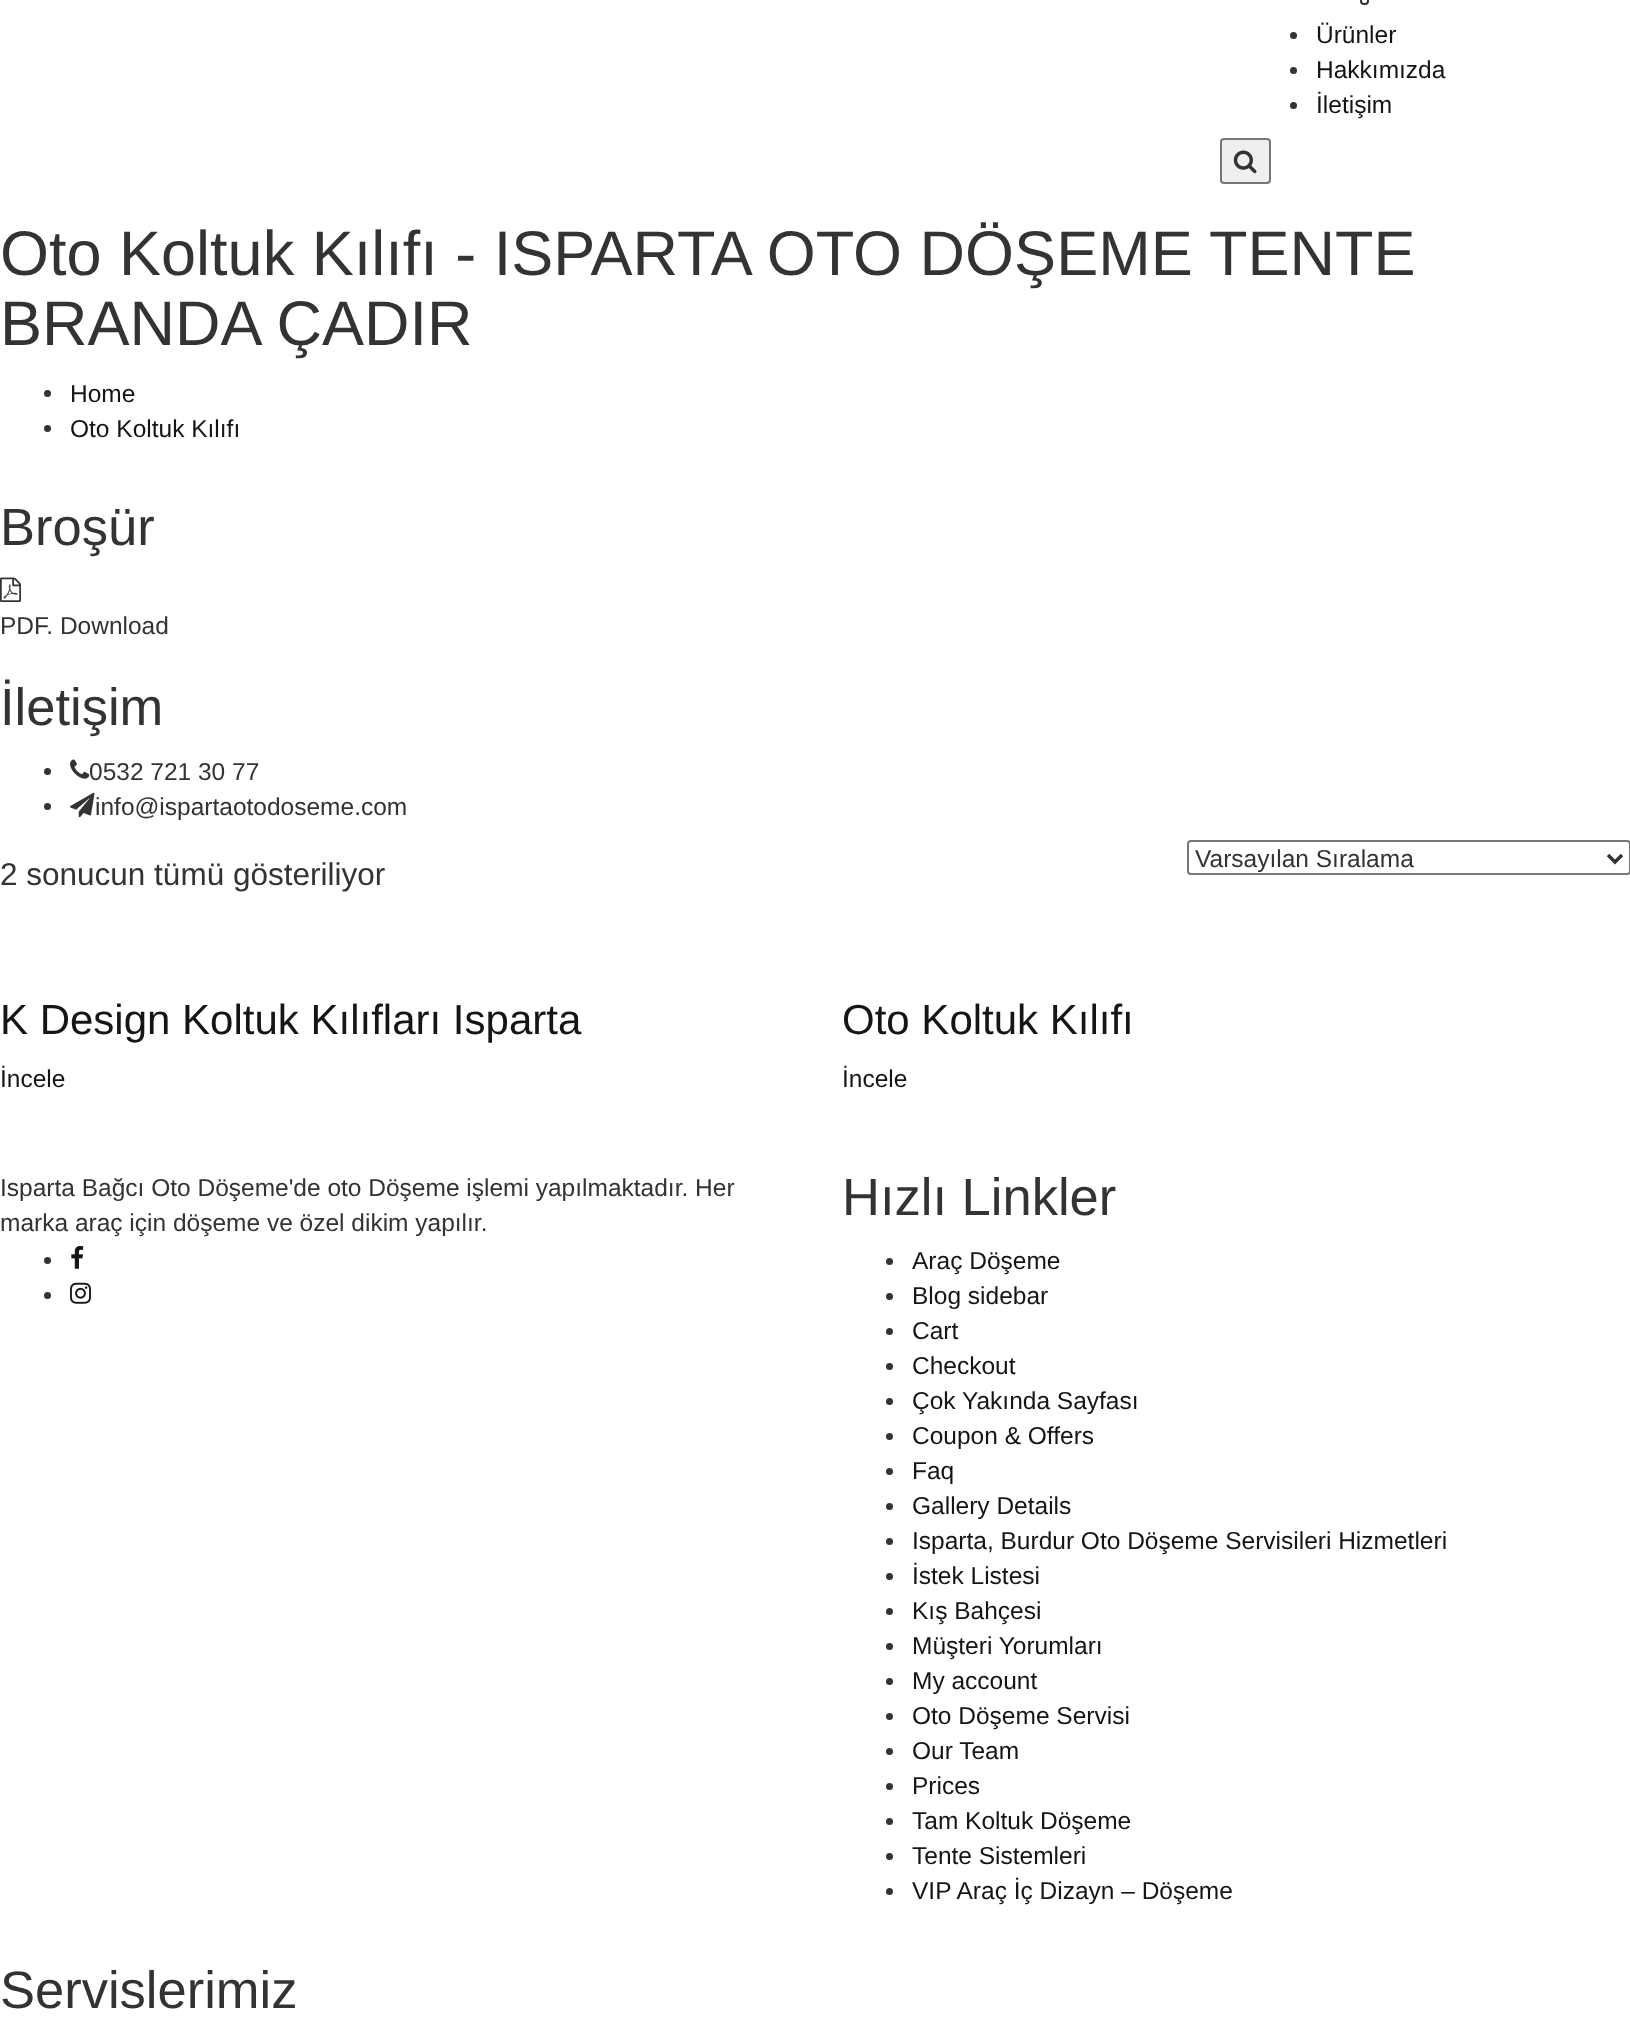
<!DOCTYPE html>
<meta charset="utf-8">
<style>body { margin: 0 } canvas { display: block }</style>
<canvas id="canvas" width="1630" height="2023"></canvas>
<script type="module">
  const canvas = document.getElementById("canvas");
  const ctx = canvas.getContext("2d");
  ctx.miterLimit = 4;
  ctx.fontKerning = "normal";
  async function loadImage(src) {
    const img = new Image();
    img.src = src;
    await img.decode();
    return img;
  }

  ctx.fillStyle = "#ffffff";
  ctx.fillRect(0, 0, 1630, 2023);
  ctx.beginPath();
  ctx.roundRect(1361, -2, 7, 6, 3);
  ctx.strokeStyle = "#333333";
  ctx.lineWidth = 2;
  ctx.stroke();
  ctx.fillStyle = "#333333";
  ctx.beginPath();
  ctx.arc(1293.5, 35.5, 3.5, 0, Math.PI * 2);
  ctx.fill();
  ctx.font = "24.5px Liberation Sans";
  ctx.fillStyle = "#151515";
  ctx.fillText("Ürünler", 1316, 43);
  ctx.fillStyle = "#333333";
  ctx.beginPath();
  ctx.arc(1293.5, 70.5, 3.5, 0, Math.PI * 2);
  ctx.fill();
  ctx.fillStyle = "#151515";
  ctx.fillText("Hakkımızda", 1316, 78);
  ctx.fillStyle = "#333333";
  ctx.beginPath();
  ctx.arc(1293.5, 105.5, 3.5, 0, Math.PI * 2);
  ctx.fill();
  ctx.fillStyle = "#151515";
  ctx.fillText("İletişim", 1316, 113);
  ctx.fillStyle = "#efefef";
  ctx.beginPath();
  ctx.roundRect(1221, 139, 49, 44, 3);
  ctx.fill();
  ctx.strokeStyle = "#767676";
  ctx.stroke();
  ctx.drawImage(await loadImage("img1.png"), 1233, 150, 24, 24);
  ctx.font = "63px Liberation Sans";
  ctx.fillStyle = "#333333";
  ctx.fillText("Oto Koltuk Kılıfı - ISPARTA OTO DÖŞEME TENTE", 0, 275);
  ctx.fillText("BRANDA ÇADIR", 0, 345);
  ctx.beginPath();
  ctx.arc(47.5, 393.5, 3.5, 0, Math.PI * 2);
  ctx.fill();
  ctx.font = "24.5px Liberation Sans";
  ctx.fillStyle = "#151515";
  ctx.fillText("Home", 70, 402);
  ctx.fillStyle = "#333333";
  ctx.beginPath();
  ctx.arc(47.5, 428.5, 3.5, 0, Math.PI * 2);
  ctx.fill();
  ctx.fillStyle = "#151515";
  ctx.fillText("Oto Koltuk Kılıfı", 70, 437);
  ctx.font = "52.5px Liberation Sans";
  ctx.fillStyle = "#333333";
  ctx.fillText("Broşür", 0, 545);
  ctx.drawImage(await loadImage("img2.png"), 0, 577, 21, 25);
  ctx.font = "24.5px Liberation Sans";
  ctx.fillText("PDF. Download", 0, 634);
  ctx.font = "52.5px Liberation Sans";
  ctx.fillText("İletişim", 0, 725);
  ctx.beginPath();
  ctx.arc(47.5, 771.5, 3.5, 0, Math.PI * 2);
  ctx.fill();
  ctx.drawImage(await loadImage("img3.png"), 70, 759, 20, 20);
  ctx.font = "24.5px Liberation Sans";
  ctx.fillText("0532 721 30 77", 89, 780);
  ctx.beginPath();
  ctx.arc(47.5, 806.5, 3.5, 0, Math.PI * 2);
  ctx.fill();
  ctx.drawImage(await loadImage("img4.png"), 70, 792, 25, 26);
  ctx.fillText("info@ispartaotodoseme.com", 95, 815);
  ctx.font = "31.5px Liberation Sans";
  ctx.fillText("2 sonucun tümü gösteriliyor", 0, 885);
  ctx.beginPath();
  ctx.roundRect(1188, 841, 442, 33, 3);
  ctx.stroke();
  ctx.beginPath();
  ctx.moveTo(1608, 855);
  ctx.lineTo(1615, 862);
  ctx.lineTo(1622, 855);
  ctx.strokeStyle = "#333333";
  ctx.lineWidth = 3.5;
  ctx.stroke();
  ctx.font = "24.5px Liberation Sans";
  ctx.fillText("Varsayılan Sıralama", 1195, 867);
  ctx.font = "42px Liberation Sans";
  ctx.fillStyle = "#151515";
  ctx.fillText("K Design Koltuk Kılıfları Isparta", 0, 1034);
  ctx.font = "24.5px Liberation Sans";
  ctx.fillText("İncele", 0, 1087);
  ctx.font = "42px Liberation Sans";
  ctx.fillText("Oto Koltuk Kılıfı", 842, 1034);
  ctx.font = "24.5px Liberation Sans";
  ctx.fillText("İncele", 842, 1087);
  ctx.fillStyle = "#333333";
  ctx.fillText("Isparta Bağcı Oto Döşeme'de oto Döşeme işlemi yapılmaktadır. Her", 0, 1196);
  ctx.fillText("marka araç için döşeme ve özel dikim yapılır.", 0, 1231);
  ctx.beginPath();
  ctx.arc(47.5, 1260.5, 3.5, 0, Math.PI * 2);
  ctx.fill();
  ctx.drawImage(await loadImage("img5.png"), 71, 1246, 13, 23);
  ctx.beginPath();
  ctx.arc(47.5, 1295.5, 3.5, 0, Math.PI * 2);
  ctx.fill();
  ctx.drawImage(await loadImage("img6.png"), 70, 1282, 21, 22);
  ctx.font = "52.5px Liberation Sans";
  ctx.fillText("Hızlı Linkler", 842, 1215);
  ctx.beginPath();
  ctx.arc(889.5, 1261.5, 3.5, 0, Math.PI * 2);
  ctx.fill();
  ctx.font = "24.5px Liberation Sans";
  ctx.fillStyle = "#151515";
  ctx.fillText("Araç Döşeme", 912, 1269);
  ctx.fillStyle = "#333333";
  ctx.beginPath();
  ctx.arc(889.5, 1296.5, 3.5, 0, Math.PI * 2);
  ctx.fill();
  ctx.fillStyle = "#151515";
  ctx.fillText("Blog sidebar", 912, 1304);
  ctx.fillStyle = "#333333";
  ctx.beginPath();
  ctx.arc(889.5, 1331.5, 3.5, 0, Math.PI * 2);
  ctx.fill();
  ctx.fillStyle = "#151515";
  ctx.fillText("Cart", 912, 1339);
  ctx.fillStyle = "#333333";
  ctx.beginPath();
  ctx.arc(889.5, 1366.5, 3.5, 0, Math.PI * 2);
  ctx.fill();
  ctx.fillStyle = "#151515";
  ctx.fillText("Checkout", 912, 1374);
  ctx.fillStyle = "#333333";
  ctx.beginPath();
  ctx.arc(889.5, 1401.5, 3.5, 0, Math.PI * 2);
  ctx.fill();
  ctx.fillStyle = "#151515";
  ctx.fillText("Çok Yakında Sayfası", 912, 1409);
  ctx.fillStyle = "#333333";
  ctx.beginPath();
  ctx.arc(889.5, 1436.5, 3.5, 0, Math.PI * 2);
  ctx.fill();
  ctx.fillStyle = "#151515";
  ctx.fillText("Coupon & Offers", 912, 1444);
  ctx.fillStyle = "#333333";
  ctx.beginPath();
  ctx.arc(889.5, 1471.5, 3.5, 0, Math.PI * 2);
  ctx.fill();
  ctx.fillStyle = "#151515";
  ctx.fillText("Faq", 912, 1479);
  ctx.fillStyle = "#333333";
  ctx.beginPath();
  ctx.arc(889.5, 1506.5, 3.5, 0, Math.PI * 2);
  ctx.fill();
  ctx.fillStyle = "#151515";
  ctx.fillText("Gallery Details", 912, 1514);
  ctx.fillStyle = "#333333";
  ctx.beginPath();
  ctx.arc(889.5, 1541.5, 3.5, 0, Math.PI * 2);
  ctx.fill();
  ctx.fillStyle = "#151515";
  ctx.fillText("Isparta, Burdur Oto Döşeme Servisileri Hizmetleri", 912, 1549);
  ctx.fillStyle = "#333333";
  ctx.beginPath();
  ctx.arc(889.5, 1576.5, 3.5, 0, Math.PI * 2);
  ctx.fill();
  ctx.fillStyle = "#151515";
  ctx.fillText("İstek Listesi", 912, 1584);
  ctx.fillStyle = "#333333";
  ctx.beginPath();
  ctx.arc(889.5, 1611.5, 3.5, 0, Math.PI * 2);
  ctx.fill();
  ctx.fillStyle = "#151515";
  ctx.fillText("Kış Bahçesi", 912, 1619);
  ctx.fillStyle = "#333333";
  ctx.beginPath();
  ctx.arc(889.5, 1646.5, 3.5, 0, Math.PI * 2);
  ctx.fill();
  ctx.fillStyle = "#151515";
  ctx.fillText("Müşteri Yorumları", 912, 1654);
  ctx.fillStyle = "#333333";
  ctx.beginPath();
  ctx.arc(889.5, 1681.5, 3.5, 0, Math.PI * 2);
  ctx.fill();
  ctx.fillStyle = "#151515";
  ctx.fillText("My account", 912, 1689);
  ctx.fillStyle = "#333333";
  ctx.beginPath();
  ctx.arc(889.5, 1716.5, 3.5, 0, Math.PI * 2);
  ctx.fill();
  ctx.fillStyle = "#151515";
  ctx.fillText("Oto Döşeme Servisi", 912, 1724);
  ctx.fillStyle = "#333333";
  ctx.beginPath();
  ctx.arc(889.5, 1751.5, 3.5, 0, Math.PI * 2);
  ctx.fill();
  ctx.fillStyle = "#151515";
  ctx.fillText("Our Team", 912, 1759);
  ctx.fillStyle = "#333333";
  ctx.beginPath();
  ctx.arc(889.5, 1786.5, 3.5, 0, Math.PI * 2);
  ctx.fill();
  ctx.fillStyle = "#151515";
  ctx.fillText("Prices", 912, 1794);
  ctx.fillStyle = "#333333";
  ctx.beginPath();
  ctx.arc(889.5, 1821.5, 3.5, 0, Math.PI * 2);
  ctx.fill();
  ctx.fillStyle = "#151515";
  ctx.fillText("Tam Koltuk Döşeme", 912, 1829);
  ctx.fillStyle = "#333333";
  ctx.beginPath();
  ctx.arc(889.5, 1856.5, 3.5, 0, Math.PI * 2);
  ctx.fill();
  ctx.fillStyle = "#151515";
  ctx.fillText("Tente Sistemleri", 912, 1864);
  ctx.fillStyle = "#333333";
  ctx.beginPath();
  ctx.arc(889.5, 1891.5, 3.5, 0, Math.PI * 2);
  ctx.fill();
  ctx.fillStyle = "#151515";
  ctx.fillText("VIP Araç İç Dizayn – Döşeme", 912, 1899);
  ctx.font = "52.5px Liberation Sans";
  ctx.fillStyle = "#333333";
  ctx.fillText("Servislerimiz", 0, 2008);
</script>
